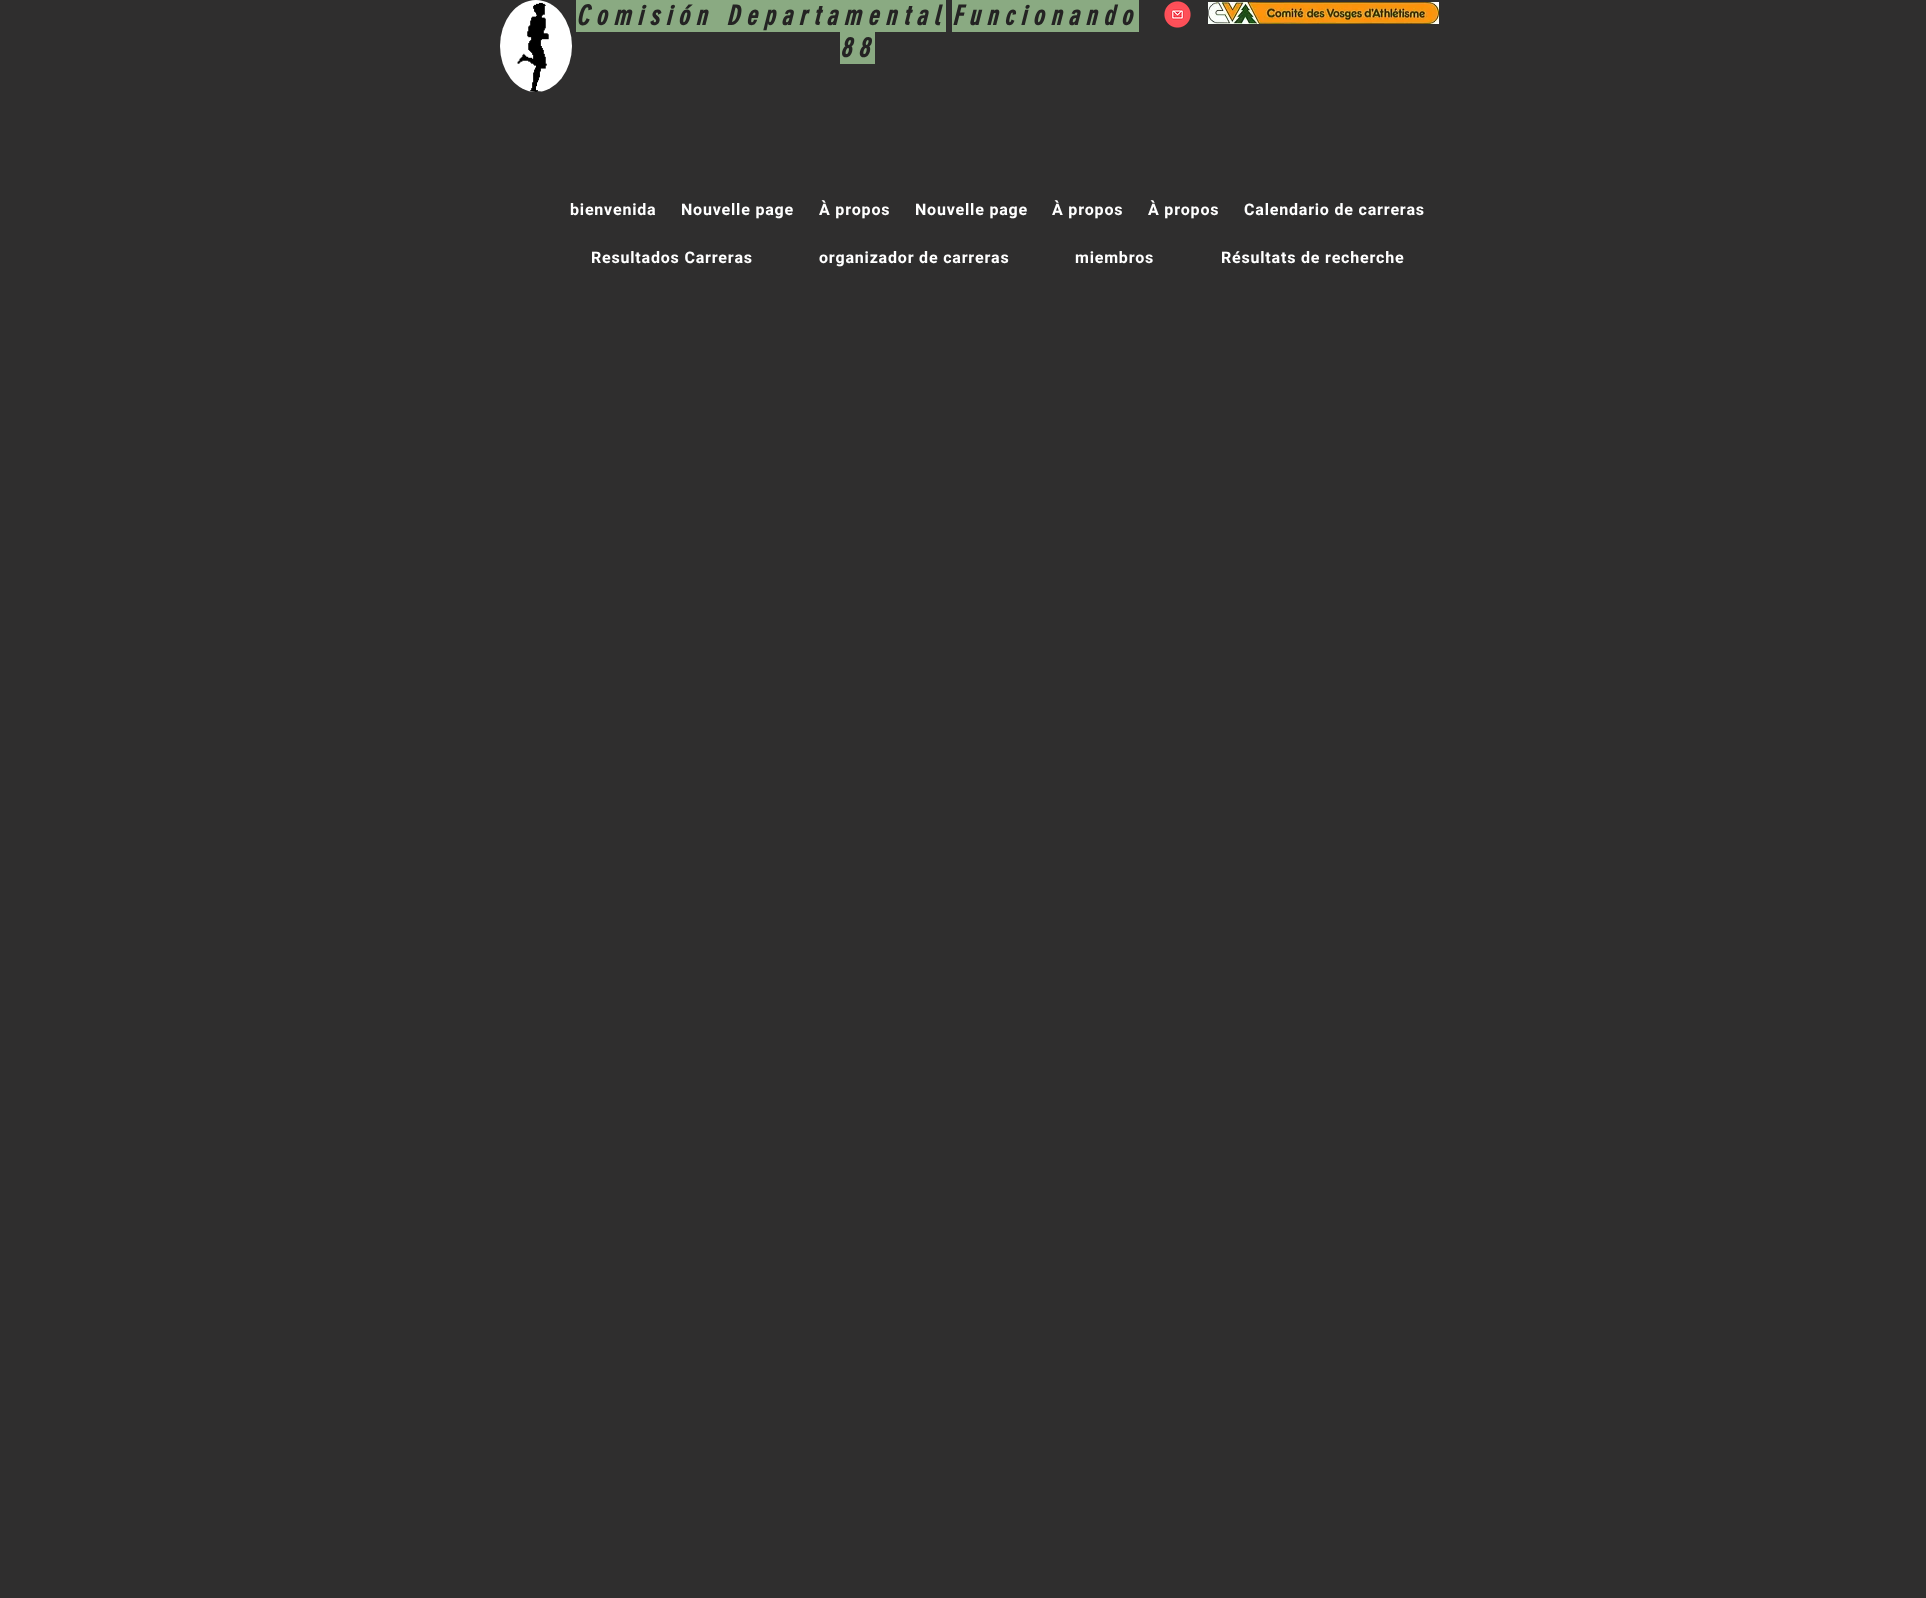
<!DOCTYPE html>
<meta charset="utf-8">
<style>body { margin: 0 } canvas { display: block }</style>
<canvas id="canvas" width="1926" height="1598"></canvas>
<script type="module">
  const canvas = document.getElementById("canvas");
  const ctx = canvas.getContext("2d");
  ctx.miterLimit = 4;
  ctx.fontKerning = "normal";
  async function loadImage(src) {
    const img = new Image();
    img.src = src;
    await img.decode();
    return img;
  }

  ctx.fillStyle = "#2f2e2e";
  ctx.fillRect(0, 0, 1926, 1598);
  ctx.fillStyle = "#ffffff";
  ctx.beginPath();
  ctx.ellipse(536, 46, 36, 46, 0, 0, Math.PI * 2);
  ctx.fill();
  ctx.drawImage(await loadImage("img1.png"), 517, 2, 32, 90);
  ctx.fillStyle = "#8aaa82";
  ctx.fillRect(576, 0, 370, 32);
  ctx.letterSpacing = "6.75px";
  ctx.font = "italic bold 27px 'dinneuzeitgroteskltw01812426'";
  ctx.fillStyle = "#242323";
  ctx.fillText("Comisión Departamental", 576, 25);
  ctx.fillStyle = "#8aaa82";
  ctx.fillRect(952, 0, 187, 32);
  ctx.fillStyle = "#242323";
  ctx.fillText("Funcionando", 952, 25);
  ctx.fillStyle = "#8aaa82";
  ctx.fillRect(840, 32, 35, 32);
  ctx.fillStyle = "#242323";
  ctx.fillText("88", 840, 57);
  ctx.drawImage(await loadImage("img2.png"), 1164, 1, 27, 27);
  ctx.drawImage(await loadImage("img3.png"), 1208, 2, 231, 22);
  ctx.letterSpacing = "0.8px";
  ctx.font = "bold 16px Heebo";
  ctx.fillStyle = "#ffffff";
  ctx.fillText("bienvenida", 570, 215);
  ctx.fillText("Nouvelle page", 681, 215);
  ctx.fillText("À propos", 819, 215);
  ctx.fillText("Nouvelle page", 915, 215);
  ctx.fillText("À propos", 1052, 215);
  ctx.fillText("À propos", 1148, 215);
  ctx.fillText("Calendario de carreras", 1244, 215);
  ctx.fillText("Resultados Carreras", 591, 263);
  ctx.fillText("organizador de carreras", 819, 263);
  ctx.fillText("miembros", 1075, 263);
  ctx.fillText("Résultats de recherche", 1221, 263);
</script>
